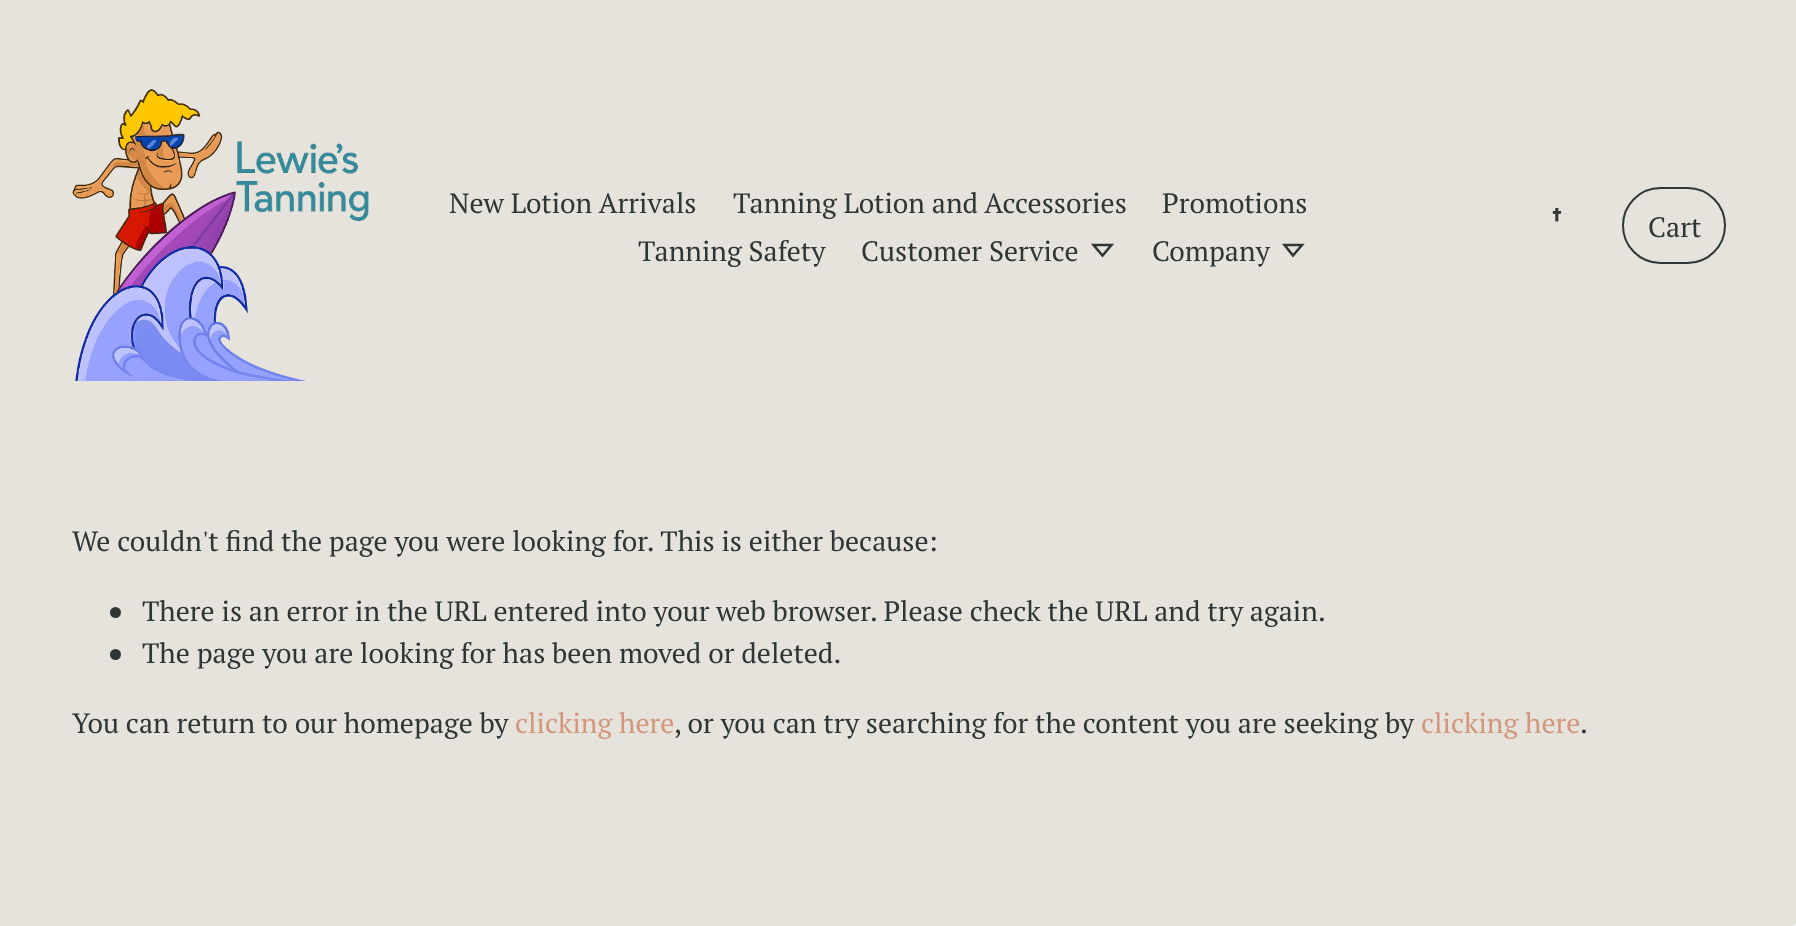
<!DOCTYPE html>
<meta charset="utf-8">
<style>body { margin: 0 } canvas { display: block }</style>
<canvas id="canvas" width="1796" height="926"></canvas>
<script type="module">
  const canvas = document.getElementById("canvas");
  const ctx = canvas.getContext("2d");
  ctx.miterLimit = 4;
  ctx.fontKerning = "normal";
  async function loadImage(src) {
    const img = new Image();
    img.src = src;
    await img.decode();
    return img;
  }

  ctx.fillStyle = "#e5e3dc";
  ctx.fillRect(0, 0, 1796, 926);
  ctx.drawImage(await loadImage("img1.png"), 72, 89, 297, 292);
  ctx.font = "28px PT Serif";
  ctx.fillStyle = "#303636";
  ctx.fillText("New Lotion Arrivals", 449, 213);
  ctx.fillText("Tanning Lotion and Accessories", 733, 213);
  ctx.fillText("Promotions", 1162, 213);
  ctx.fillText("Tanning Safety", 638, 261);
  ctx.fillText("Customer Service", 861, 261);
  ctx.beginPath();
  ctx.moveTo(1111.5, 245);
  ctx.lineTo(1102.5, 255.5);
  ctx.lineTo(1093.5, 245);
  ctx.closePath();
  ctx.strokeStyle = "#303636";
  ctx.lineWidth = 2.5;
  ctx.lineCap = "square";
  ctx.stroke();
  ctx.fillText("Company", 1152, 261);
  ctx.beginPath();
  ctx.moveTo(1302, 245);
  ctx.lineTo(1293, 255.5);
  ctx.lineTo(1284.5, 245);
  ctx.closePath();
  ctx.stroke();
  ctx.drawImage(await loadImage("img2.png"), 1552, 208, 10, 14);
  ctx.beginPath();
  ctx.roundRect(1623, 188, 102, 75, 37.5);
  ctx.lineWidth = 2;
  ctx.stroke();
  ctx.fillText("Cart", 1648, 237);
  ctx.fillText("We couldn't find the page you were looking for. This is either because:", 72, 551);
  ctx.beginPath();
  ctx.arc(115.5, 612.5, 5.5, 0, Math.PI * 2);
  ctx.fill();
  ctx.fillText("There is an error in the URL entered into your web browser. Please check the URL and try again.", 142, 621);
  ctx.beginPath();
  ctx.arc(115.5, 654.5, 5.5, 0, Math.PI * 2);
  ctx.fill();
  ctx.fillText("The page you are looking for has been moved or deleted.", 142, 663);
  ctx.fillText("You can return to our homepage by", 72, 733);
  ctx.fillStyle = "#d4967d";
  ctx.fillText("clicking here", 515, 733);
  ctx.fillStyle = "#303636";
  ctx.fillText(", or you can try searching for the content you are seeking by", 674, 733);
  ctx.fillStyle = "#d4967d";
  ctx.fillText("clicking here", 1421, 733);
  ctx.fillStyle = "#303636";
  ctx.fillText(".", 1580, 733);
  ctx.fillStyle = "#f5f5f5";
  ctx.fillRect(1794, 924, 2, 2);
</script>
